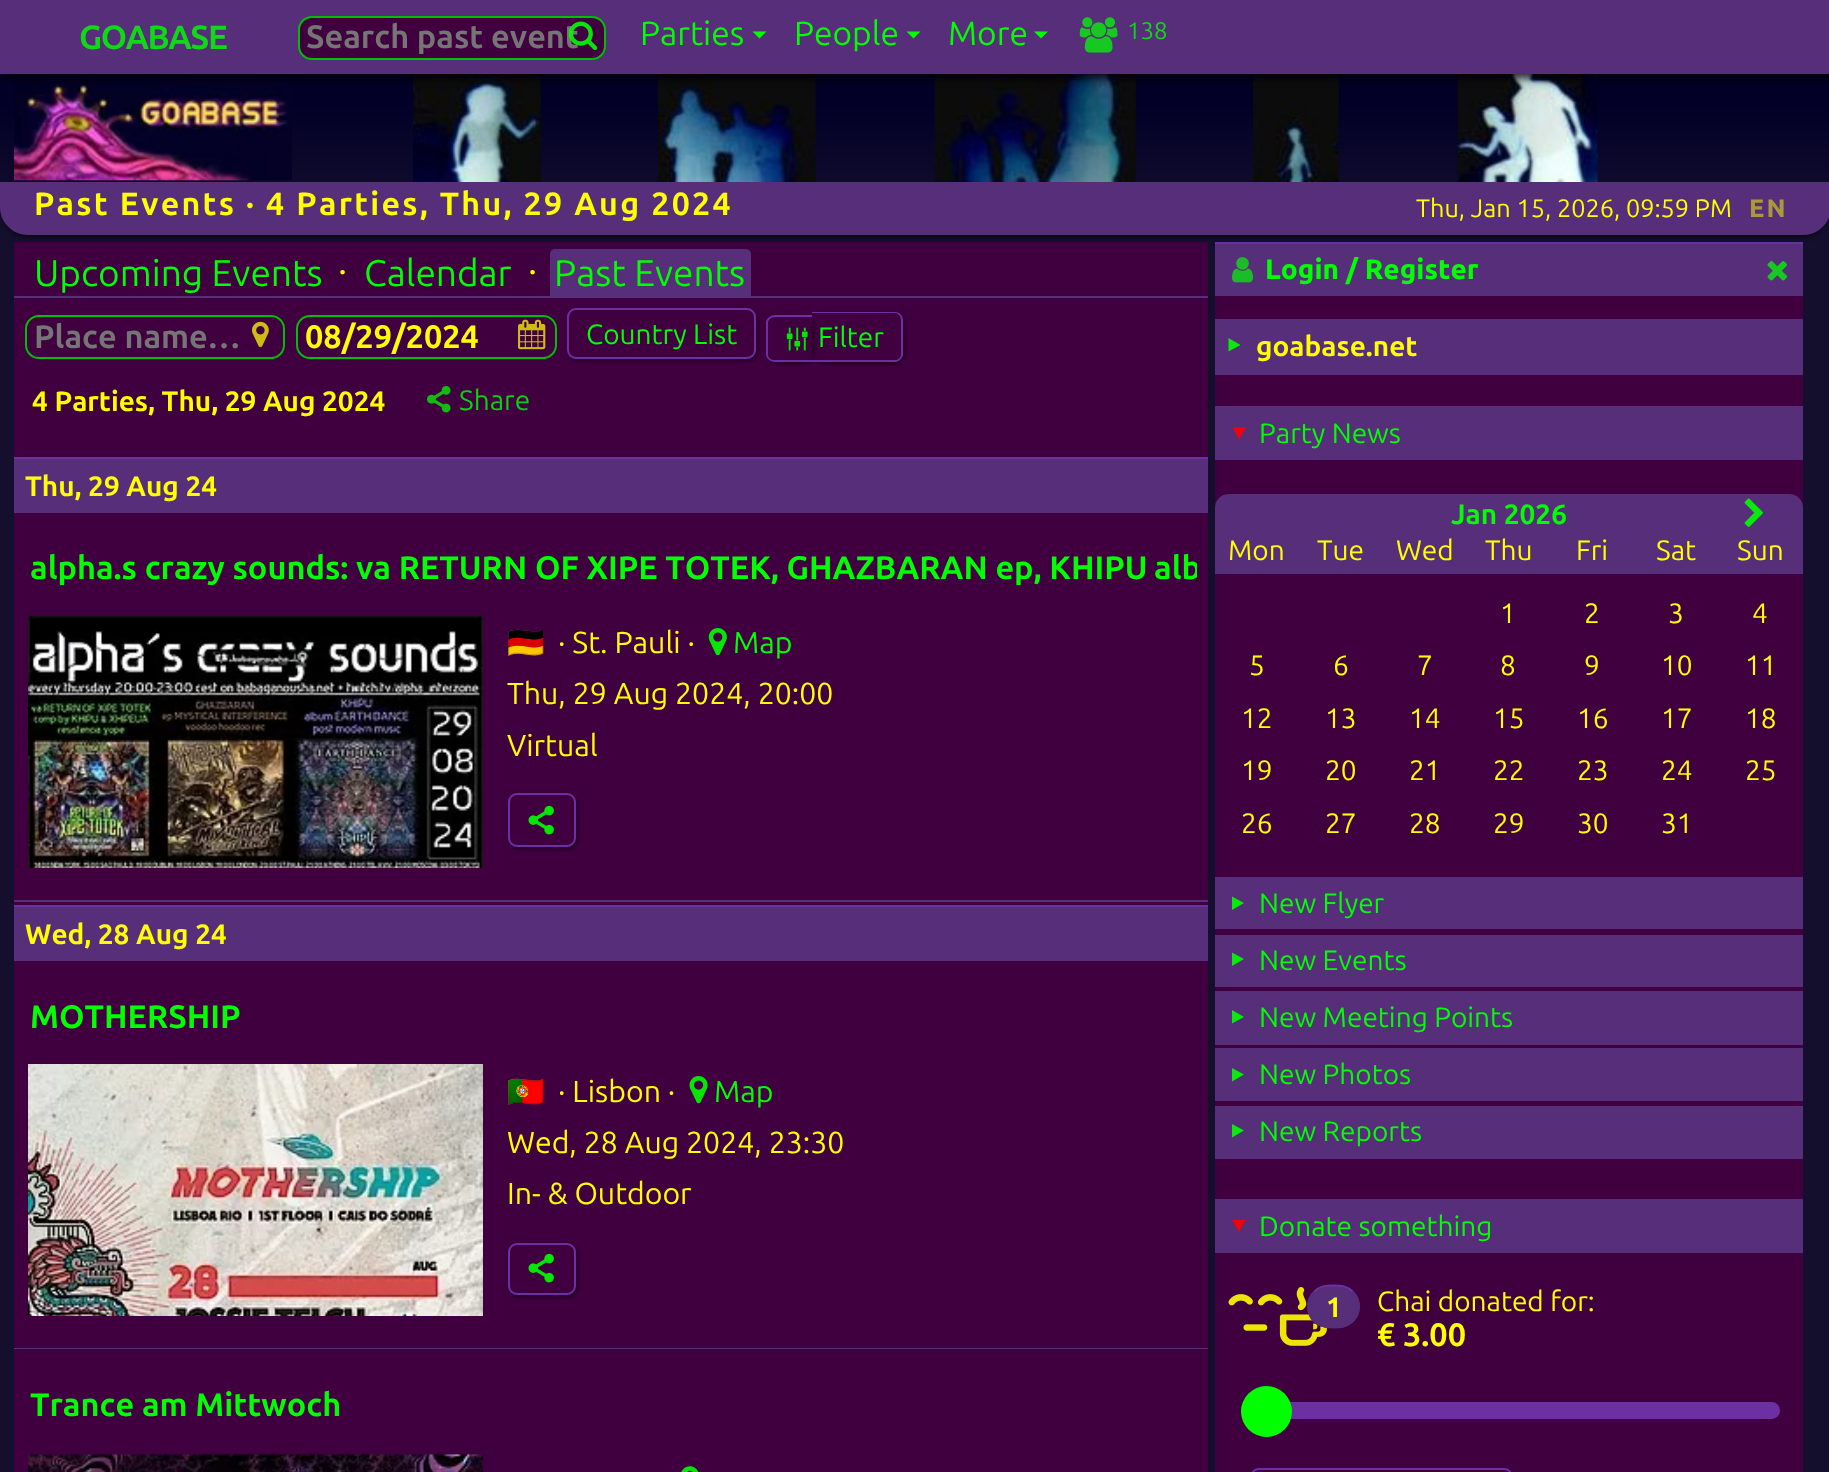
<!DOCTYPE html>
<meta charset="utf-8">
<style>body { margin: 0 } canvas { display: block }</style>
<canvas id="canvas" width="1829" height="1472"></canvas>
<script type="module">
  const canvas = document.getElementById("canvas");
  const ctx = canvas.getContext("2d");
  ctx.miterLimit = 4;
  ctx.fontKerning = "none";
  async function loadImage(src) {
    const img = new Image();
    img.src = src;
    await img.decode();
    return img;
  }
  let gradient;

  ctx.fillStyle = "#150f2e";
  ctx.fillRect(0, 0, 1829, 1472);
  gradient = ctx.createLinearGradient(915, 0, 915, 217);
  gradient.addColorStop(0.48, "#020027");
  gradient.addColorStop(1, "#150f2e");
  ctx.fillStyle = gradient;
  ctx.fillRect(0, 74, 1829, 108);
  ctx.drawImage(await loadImage("img3.png"), 14, 78, 278, 103);
  ctx.drawImage(await loadImage("img4.png"), 413, 74, 128, 108);
  ctx.drawImage(await loadImage("img5.png"), 658, 74, 158, 108);
  ctx.drawImage(await loadImage("img6.png"), 934, 74, 202, 108);
  ctx.drawImage(await loadImage("img7.png"), 1253, 74, 86, 108);
  ctx.drawImage(await loadImage("img8.png"), 1457, 74, 141, 108);
  ctx.fillStyle = "rgba(0, 0, 0, 0.8)";
  ctx.filter = "blur(4.5px)";
  ctx.beginPath();
  ctx.rect(5, 5, 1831, 74);
  ctx.fill();
  ctx.filter = "none";
  ctx.fillStyle = "#562e7a";
  ctx.fillRect(0, 0, 1829, 74);
  ctx.letterSpacing = "-1.5px";
  ctx.font = "bold 33.5px Ubuntu";
  ctx.fillStyle = "#0fd916";
  ctx.fillText("GOABASE", 79, 49);
  ctx.fillStyle = "#400040";
  ctx.beginPath();
  ctx.roundRect(299, 17, 306, 42, 13);
  ctx.fill();
  ctx.strokeStyle = "#00bf00";
  ctx.lineWidth = 2;
  ctx.stroke();
  ctx.letterSpacing = "0px";
  ctx.font = "bold 32.5px Ubuntu";
  ctx.fillStyle = "#757575";
  ctx.fillText("Search past event", 306, 48);
  ctx.drawImage(await loadImage("img1.png"), 568, 21, 30, 30);
  ctx.font = "33.5px Ubuntu";
  ctx.fillStyle = "#00ff00";
  ctx.fillText("Parties", 640, 45);
  ctx.beginPath();
  ctx.moveTo(752.5, 31.5);
  ctx.lineTo(766.5, 31.5);
  ctx.lineTo(759.5, 38.5);
  ctx.closePath();
  ctx.fill();
  ctx.fillText("People", 794, 45);
  ctx.beginPath();
  ctx.moveTo(906.5, 31.5);
  ctx.lineTo(920.5, 31.5);
  ctx.lineTo(913.5, 38.5);
  ctx.closePath();
  ctx.fill();
  ctx.fillText("More", 948, 45);
  ctx.beginPath();
  ctx.moveTo(1034, 31.5);
  ctx.lineTo(1048, 31.5);
  ctx.lineTo(1041, 38.5);
  ctx.closePath();
  ctx.fill();
  ctx.drawImage(await loadImage("img2.png"), 1079, 17, 39, 36);
  ctx.font = "24px Ubuntu";
  ctx.fillStyle = "#0fd916";
  ctx.fillText("138", 1127, 39);
  ctx.fillStyle = "#400040";
  ctx.fillRect(14, 242, 1194, 54);
  ctx.fillStyle = "#562e7a";
  ctx.fillRect(1215, 244, 588, 52);
  ctx.fillStyle = "#6c30a4";
  ctx.fillRect(1215, 242, 588, 2);
  ctx.fillStyle = "rgba(0, 0, 0, 0.5)";
  ctx.filter = "blur(2px)";
  ctx.beginPath();
  ctx.roundRect(4, 193, 1823, 45, 25);
  ctx.fill();
  ctx.filter = "none";
  ctx.fillStyle = "#562e7a";
  ctx.beginPath();
  ctx.moveTo(0, 182);
  ctx.lineTo(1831, 182);
  ctx.lineTo(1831, 207);
  ctx.bezierCurveTo(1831, 222.5, 1818.5, 235, 1803, 235);
  ctx.lineTo(28, 235);
  ctx.bezierCurveTo(12.5, 235, 0, 222.5, 0, 207);
  ctx.closePath();
  ctx.fill();
  ctx.letterSpacing = "2.25px";
  ctx.font = "bold 32.2px Ubuntu";
  ctx.fillStyle = "#ffff00";
  ctx.fillText("Past Events · 4 Parties, Thu, 29 Aug 2024", 34, 215);
  ctx.letterSpacing = "0px";
  ctx.font = "25.25px Ubuntu";
  ctx.fillText("Thu, Jan 15, 2026, 09:59 PM", 1416, 217);
  ctx.letterSpacing = "2.25px";
  ctx.font = "800 25.25px Ubuntu";
  ctx.fillStyle = "#ab973d";
  ctx.fillText("EN", 1749, 217);
  ctx.fillStyle = "#562e7a";
  ctx.fillRect(14, 296, 1194, 2);
  ctx.letterSpacing = "0px";
  ctx.font = "37px Ubuntu";
  ctx.fillStyle = "#00ff00";
  ctx.fillText("Upcoming Events", 34, 286);
  ctx.fillStyle = "#ffff00";
  ctx.fillText("·", 338, 283);
  ctx.fillStyle = "#00ff00";
  ctx.fillText("Calendar", 364, 286);
  ctx.fillStyle = "#ffff00";
  ctx.fillText("·", 528, 283);
  ctx.fillStyle = "#562e7a";
  ctx.beginPath();
  ctx.roundRect(550, 249, 201, 47, [5, 5, 0, 0]);
  ctx.fill();
  ctx.fillStyle = "#00ff00";
  ctx.fillText("Past Events", 554, 286);
  ctx.fillStyle = "#400040";
  ctx.fillRect(14, 298, 1194, 1050);
  ctx.beginPath();
  ctx.roundRect(26, 316, 258, 42, 13);
  ctx.stroke();
  ctx.font = "bold 32.5px Ubuntu";
  ctx.fillStyle = "#757575";
  ctx.fillText("Place name…", 34, 348);
  ctx.drawImage(await loadImage("img9.png"), 252, 321, 17, 27);
  ctx.beginPath();
  ctx.roundRect(297, 316, 259, 42, 13);
  ctx.stroke();
  ctx.fillStyle = "#ffff00";
  ctx.fillText("08/29/2024", 305, 348);
  ctx.drawImage(await loadImage("img10.png"), 518, 319, 28, 31);
  ctx.save();
  ctx.beginPath();
  ctx.moveTo(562, 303);
  ctx.lineTo(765, 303);
  ctx.lineTo(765, 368);
  ctx.lineTo(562, 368);
  ctx.closePath();
  ctx.moveTo(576, 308);
  ctx.lineTo(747, 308);
  ctx.bezierCurveTo(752, 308, 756, 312, 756, 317);
  ctx.lineTo(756, 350);
  ctx.bezierCurveTo(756, 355, 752, 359, 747, 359);
  ctx.lineTo(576, 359);
  ctx.bezierCurveTo(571, 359, 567, 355, 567, 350);
  ctx.lineTo(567, 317);
  ctx.bezierCurveTo(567, 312, 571, 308, 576, 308);
  ctx.closePath();
  ctx.clip("evenodd");
  ctx.fillStyle = "rgba(0, 0, 0, 0.45)";
  ctx.filter = "blur(2px)";
  ctx.beginPath();
  ctx.roundRect(569, 310, 189, 51, 9);
  ctx.fill();
  ctx.filter = "none";
  ctx.restore();
  ctx.beginPath();
  ctx.roundRect(568, 309, 187, 49, 8);
  ctx.strokeStyle = "#6c30a4";
  ctx.stroke();
  ctx.font = "28px Ubuntu";
  ctx.fillStyle = "#00ff00";
  ctx.fillText("Country List", 586, 344);
  ctx.save();
  ctx.beginPath();
  ctx.moveTo(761, 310);
  ctx.lineTo(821, 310);
  ctx.lineTo(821, 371);
  ctx.lineTo(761, 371);
  ctx.closePath();
  ctx.moveTo(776, 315);
  ctx.lineTo(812, 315);
  ctx.lineTo(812, 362);
  ctx.lineTo(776, 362);
  ctx.bezierCurveTo(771, 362, 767, 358, 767, 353);
  ctx.lineTo(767, 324);
  ctx.bezierCurveTo(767, 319, 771, 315, 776, 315);
  ctx.closePath();
  ctx.clip("evenodd");
  ctx.fillStyle = "rgba(0, 0, 0, 0.45)";
  ctx.filter = "blur(2px)";
  ctx.beginPath();
  ctx.roundRect(768, 317, 46, 47, 9);
  ctx.fill();
  ctx.filter = "none";
  ctx.restore();
  ctx.fillStyle = "#6c30a4";
  ctx.beginPath();
  ctx.moveTo(775, 315);
  ctx.lineTo(812, 315);
  ctx.lineTo(812, 362);
  ctx.lineTo(775, 362);
  ctx.bezierCurveTo(770, 362, 766, 358, 766, 354);
  ctx.lineTo(766, 323);
  ctx.bezierCurveTo(766, 319, 770, 315, 775, 315);
  ctx.closePath();
  ctx.moveTo(775, 317);
  ctx.lineTo(812, 317);
  ctx.lineTo(812, 360);
  ctx.lineTo(775, 360);
  ctx.bezierCurveTo(771, 360, 768, 358, 768, 354);
  ctx.lineTo(768, 323);
  ctx.bezierCurveTo(768, 320, 771, 317, 775, 317);
  ctx.closePath();
  ctx.fill("evenodd");
  ctx.save();
  ctx.beginPath();
  ctx.moveTo(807, 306);
  ctx.lineTo(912, 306);
  ctx.lineTo(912, 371);
  ctx.lineTo(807, 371);
  ctx.closePath();
  ctx.moveTo(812, 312);
  ctx.lineTo(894, 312);
  ctx.bezierCurveTo(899, 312, 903, 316, 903, 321);
  ctx.lineTo(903, 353);
  ctx.bezierCurveTo(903, 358, 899, 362, 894, 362);
  ctx.lineTo(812, 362);
  ctx.closePath();
  ctx.clip("evenodd");
  ctx.fillStyle = "rgba(0, 0, 0, 0.45)";
  ctx.filter = "blur(2px)";
  ctx.beginPath();
  ctx.roundRect(814, 313, 91, 51, 9);
  ctx.fill();
  ctx.filter = "none";
  ctx.restore();
  ctx.beginPath();
  ctx.moveTo(812, 312);
  ctx.lineTo(895, 312);
  ctx.bezierCurveTo(899, 312, 903, 315, 903, 320);
  ctx.lineTo(903, 354);
  ctx.bezierCurveTo(903, 358, 899, 362, 895, 362);
  ctx.lineTo(812, 362);
  ctx.closePath();
  ctx.moveTo(812, 313);
  ctx.lineTo(895, 313);
  ctx.bezierCurveTo(898, 313, 901, 316, 901, 320);
  ctx.lineTo(901, 354);
  ctx.bezierCurveTo(901, 358, 898, 360, 895, 360);
  ctx.lineTo(812, 360);
  ctx.closePath();
  ctx.fill("evenodd");
  ctx.drawImage(await loadImage("img11.png"), 786, 327, 22, 24);
  ctx.fillStyle = "#00ff00";
  ctx.fillText("Filter", 818, 347);
  ctx.font = "bold 28px Ubuntu";
  ctx.fillStyle = "#ffff00";
  ctx.fillText("4 Parties, Thu, 29 Aug 2024", 32, 411);
  ctx.drawImage(await loadImage("img12.png"), 427, 386, 24, 27);
  ctx.font = "28px Ubuntu";
  ctx.fillStyle = "#0cd10c";
  ctx.fillText("Share", 459, 410);
  ctx.fillStyle = "#6c30a4";
  ctx.fillRect(14, 457, 1194, 2);
  ctx.fillStyle = "#562e7a";
  ctx.fillRect(14, 459, 1194, 54);
  ctx.font = "bold 28px Ubuntu";
  ctx.fillStyle = "#ffff00";
  ctx.fillText("Thu, 29 Aug 24", 25, 496);
  ctx.fillStyle = "#562e7a";
  ctx.fillRect(14, 900, 1194, 2);
  ctx.font = "bold 32.5px Ubuntu";
  ctx.fillStyle = "#00ff00";
  ctx.fillText("alpha.s crazy sounds: va RETURN OF XIPE TOTEK, GHAZBARAN ep, KHIPU", 30, 579);
  ctx.save();
  ctx.beginPath();
  ctx.rect(30, 546, 1167, 42);
  ctx.clip();
  ctx.fillText("alb", 1154, 579);
  ctx.restore();
  ctx.drawImage(await loadImage("img13.png"), 28, 616, 455, 252);
  ctx.font = "30.25px Noto Color Emoji";
  ctx.fillStyle = "#10bf10";
  ctx.fillText("🇩🇪", 507, 653);
  ctx.font = "30.25px Ubuntu";
  ctx.fillStyle = "#ffff00";
  ctx.fillText("· St. Pauli ·", 558, 653);
  ctx.drawImage(await loadImage("img14.png"), 708, 628, 19, 28);
  ctx.fillStyle = "#00ff00";
  ctx.fillText("Map", 733, 653);
  ctx.fillStyle = "#ffff00";
  ctx.fillText("Thu, 29 Aug 2024, 20:00", 507, 704);
  ctx.fillText("Virtual", 507, 756);
  ctx.save();
  ctx.beginPath();
  ctx.moveTo(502, 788);
  ctx.lineTo(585, 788);
  ctx.lineTo(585, 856);
  ctx.lineTo(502, 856);
  ctx.closePath();
  ctx.moveTo(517, 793);
  ctx.lineTo(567, 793);
  ctx.bezierCurveTo(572, 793, 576, 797, 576, 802);
  ctx.lineTo(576, 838);
  ctx.bezierCurveTo(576, 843, 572, 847, 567, 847);
  ctx.lineTo(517, 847);
  ctx.bezierCurveTo(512, 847, 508, 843, 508, 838);
  ctx.lineTo(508, 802);
  ctx.bezierCurveTo(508, 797, 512, 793, 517, 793);
  ctx.closePath();
  ctx.clip("evenodd");
  ctx.fillStyle = "rgba(0, 0, 0, 0.45)";
  ctx.filter = "blur(2px)";
  ctx.beginPath();
  ctx.roundRect(509, 795, 69, 54, 9);
  ctx.fill();
  ctx.filter = "none";
  ctx.restore();
  ctx.beginPath();
  ctx.roundRect(509, 794, 66, 52, 8);
  ctx.stroke();
  ctx.drawImage(await loadImage("img15.png"), 528, 805, 26, 30);
  ctx.fillStyle = "#6c30a4";
  ctx.fillRect(14, 905, 1194, 2);
  ctx.fillStyle = "#562e7a";
  ctx.fillRect(14, 907, 1194, 54);
  ctx.font = "bold 28px Ubuntu";
  ctx.fillStyle = "#ffff00";
  ctx.fillText("Wed, 28 Aug 24", 25, 944);
  ctx.fillStyle = "#562e7a";
  ctx.fillRect(14, 1348, 1194, 1);
  ctx.font = "bold 32.5px Ubuntu";
  ctx.fillStyle = "#00ff00";
  ctx.fillText("MOTHERSHIP", 30, 1028);
  ctx.drawImage(await loadImage("img16.png"), 28, 1064, 455, 252);
  ctx.font = "30.25px Noto Color Emoji";
  ctx.fillStyle = "#10bf10";
  ctx.fillText("🇵🇹", 507, 1102);
  ctx.font = "30.25px Ubuntu";
  ctx.fillStyle = "#ffff00";
  ctx.fillText("· Lisbon ·", 558, 1102);
  ctx.drawImage(await loadImage("img17.png"), 689, 1076, 19, 28);
  ctx.fillStyle = "#00ff00";
  ctx.fillText("Map", 714, 1102);
  ctx.fillStyle = "#ffff00";
  ctx.fillText("Wed, 28 Aug 2024, 23:30", 507, 1153);
  ctx.fillText("In- & Outdoor", 507, 1204);
  ctx.save();
  ctx.beginPath();
  ctx.moveTo(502, 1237);
  ctx.lineTo(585, 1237);
  ctx.lineTo(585, 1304);
  ctx.lineTo(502, 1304);
  ctx.closePath();
  ctx.moveTo(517, 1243);
  ctx.lineTo(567, 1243);
  ctx.bezierCurveTo(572, 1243, 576, 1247, 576, 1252);
  ctx.lineTo(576, 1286);
  ctx.bezierCurveTo(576, 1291, 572, 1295, 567, 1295);
  ctx.lineTo(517, 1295);
  ctx.bezierCurveTo(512, 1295, 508, 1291, 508, 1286);
  ctx.lineTo(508, 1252);
  ctx.bezierCurveTo(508, 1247, 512, 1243, 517, 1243);
  ctx.closePath();
  ctx.clip("evenodd");
  ctx.fillStyle = "rgba(0, 0, 0, 0.45)";
  ctx.filter = "blur(2px)";
  ctx.beginPath();
  ctx.roundRect(509, 1244, 69, 53, 9);
  ctx.fill();
  ctx.filter = "none";
  ctx.restore();
  ctx.beginPath();
  ctx.roundRect(509, 1244, 66, 50, 8);
  ctx.stroke();
  ctx.drawImage(await loadImage("img15.png"), 528, 1253, 26, 30);
  ctx.fillStyle = "#400040";
  ctx.fillRect(14, 1349, 1194, 123);
  ctx.font = "bold 32.5px Ubuntu";
  ctx.fillStyle = "#00ff00";
  ctx.fillText("Trance am Mittwoch", 30, 1416);
  ctx.drawImage(await loadImage("img18.png"), 28, 1454, 455, 18);
  ctx.drawImage(await loadImage("img19.png"), 681, 1466, 18, 6);
  ctx.fillStyle = "#400040";
  ctx.fillRect(1215, 296, 588, 1176);
  ctx.drawImage(await loadImage("img20.png"), 1232, 257, 21, 26);
  ctx.font = "800 28px Ubuntu";
  ctx.fillStyle = "#00ff00";
  ctx.fillText("Login / Register", 1265, 279);
  ctx.drawImage(await loadImage("img21.png"), 1767, 261, 20, 20);
  ctx.fillStyle = "#562e7a";
  ctx.fillRect(1215, 319, 588, 56);
  ctx.fillStyle = "#09ea0c";
  ctx.beginPath();
  ctx.moveTo(1228.5, 338);
  ctx.lineTo(1240.5, 345);
  ctx.lineTo(1228.5, 351.5);
  ctx.closePath();
  ctx.fill();
  ctx.font = "bold 28px Ubuntu";
  ctx.fillStyle = "#ffff00";
  ctx.fillText("goabase.net", 1256, 356);
  ctx.fillStyle = "#562e7a";
  ctx.fillRect(1215, 406, 588, 54);
  ctx.fillStyle = "#ee050c";
  ctx.beginPath();
  ctx.moveTo(1246, 427.5);
  ctx.lineTo(1239, 439.5);
  ctx.lineTo(1232.5, 427.5);
  ctx.closePath();
  ctx.fill();
  ctx.font = "28px Ubuntu";
  ctx.fillStyle = "#00ff00";
  ctx.fillText("Party News", 1259, 443);
  ctx.fillStyle = "#562e7a";
  ctx.beginPath();
  ctx.roundRect(1215, 494, 588, 40, [14, 14, 0, 0]);
  ctx.fill();
  ctx.font = "bold 28px Ubuntu";
  ctx.fillStyle = "#00ff00";
  ctx.fillText("Jan 2026", 1451, 524);
  ctx.drawImage(await loadImage("img22.png"), 1744, 498, 19, 29);
  ctx.fillStyle = "#562e7a";
  ctx.fillRect(1215, 534, 588, 40);
  ctx.font = "28px Ubuntu";
  ctx.fillStyle = "#ffff00";
  ctx.fillText("Mon", 1228, 560);
  ctx.fillText("Tue", 1317, 560);
  ctx.fillText("Wed", 1396, 560);
  ctx.fillText("Thu", 1485, 560);
  ctx.fillText("Fri", 1576, 560);
  ctx.fillText("Sat", 1656, 560);
  ctx.fillText("Sun", 1737, 560);
  ctx.fillText("1", 1500, 623);
  ctx.fillText("2", 1584, 623);
  ctx.fillText("3", 1668, 623);
  ctx.fillText("4", 1752, 623);
  ctx.fillText("5", 1249, 675);
  ctx.fillText("6", 1333, 675);
  ctx.fillText("7", 1417, 675);
  ctx.fillText("8", 1500, 675);
  ctx.fillText("9", 1584, 675);
  ctx.fillText("10", 1661, 675);
  ctx.fillText("11", 1745, 675);
  ctx.fillText("12", 1241, 728);
  ctx.fillText("13", 1325, 728);
  ctx.fillText("14", 1409, 728);
  ctx.fillText("15", 1493, 728);
  ctx.fillText("16", 1577, 728);
  ctx.fillText("17", 1661, 728);
  ctx.fillText("18", 1745, 728);
  ctx.fillText("19", 1241, 780);
  ctx.fillText("20", 1325, 780);
  ctx.fillText("21", 1409, 780);
  ctx.fillText("22", 1493, 780);
  ctx.fillText("23", 1577, 780);
  ctx.fillText("24", 1661, 780);
  ctx.fillText("25", 1745, 780);
  ctx.fillText("26", 1241, 833);
  ctx.fillText("27", 1325, 833);
  ctx.fillText("28", 1409, 833);
  ctx.fillText("29", 1493, 833);
  ctx.fillText("30", 1577, 833);
  ctx.fillText("31", 1661, 833);
  ctx.fillStyle = "#562e7a";
  ctx.fillRect(1215, 877, 588, 52);
  ctx.fillStyle = "#09ea0c";
  ctx.beginPath();
  ctx.moveTo(1232, 896.5);
  ctx.lineTo(1244, 903);
  ctx.lineTo(1232, 910);
  ctx.closePath();
  ctx.fill();
  ctx.fillStyle = "#00ff00";
  ctx.fillText("New Flyer", 1259, 913);
  ctx.fillStyle = "#562e7a";
  ctx.fillRect(1215, 935, 588, 52);
  ctx.fillStyle = "#09ea0c";
  ctx.beginPath();
  ctx.moveTo(1232, 952.5);
  ctx.lineTo(1244, 959);
  ctx.lineTo(1232, 966);
  ctx.closePath();
  ctx.fill();
  ctx.fillStyle = "#00ff00";
  ctx.fillText("New Events", 1259, 970);
  ctx.fillStyle = "#562e7a";
  ctx.fillRect(1215, 991, 588, 54);
  ctx.fillStyle = "#09ea0c";
  ctx.beginPath();
  ctx.moveTo(1232, 1010);
  ctx.lineTo(1244, 1017);
  ctx.lineTo(1232, 1023.5);
  ctx.closePath();
  ctx.fill();
  ctx.fillStyle = "#00ff00";
  ctx.fillText("New Meeting Points", 1259, 1027);
  ctx.fillStyle = "#562e7a";
  ctx.fillRect(1215, 1048, 588, 53);
  ctx.fillStyle = "#09ea0c";
  ctx.beginPath();
  ctx.moveTo(1232, 1068);
  ctx.lineTo(1244, 1074.5);
  ctx.lineTo(1232, 1081.5);
  ctx.closePath();
  ctx.fill();
  ctx.fillStyle = "#00ff00";
  ctx.fillText("New Photos", 1259, 1084);
  ctx.fillStyle = "#562e7a";
  ctx.fillRect(1215, 1106, 588, 53);
  ctx.fillStyle = "#09ea0c";
  ctx.beginPath();
  ctx.moveTo(1232, 1124);
  ctx.lineTo(1244, 1130.5);
  ctx.lineTo(1232, 1137.5);
  ctx.closePath();
  ctx.fill();
  ctx.fillStyle = "#00ff00";
  ctx.fillText("New Reports", 1259, 1141);
  ctx.fillStyle = "#562e7a";
  ctx.fillRect(1215, 1199, 588, 54);
  ctx.fillStyle = "#ee050c";
  ctx.beginPath();
  ctx.moveTo(1245.5, 1220);
  ctx.lineTo(1239, 1232);
  ctx.lineTo(1232, 1220);
  ctx.closePath();
  ctx.fill();
  ctx.fillStyle = "#00ff00";
  ctx.fillText("Donate something", 1259, 1236);
  ctx.drawImage(await loadImage("img23.png"), 1228, 1287, 99, 59);
  ctx.fillStyle = "#562e7a";
  ctx.beginPath();
  ctx.roundRect(1307, 1285, 53, 43, 21.5);
  ctx.fill();
  ctx.beginPath();
  ctx.moveTo(1314.5, 1291.5);
  ctx.bezierCurveTo(1320, 1286, 1326, 1285.5, 1333.5, 1285.5);
  ctx.bezierCurveTo(1341, 1285.5, 1347, 1286, 1352.5, 1291.5);
  ctx.lineWidth = 1.8;
  ctx.stroke();
  ctx.beginPath();
  ctx.moveTo(1352.5, 1291.5);
  ctx.bezierCurveTo(1356.5, 1295.5, 1359, 1301, 1359, 1306.5);
  ctx.bezierCurveTo(1359, 1316.5, 1351.5, 1325, 1342, 1327);
  ctx.lineTo(1333.5, 1327.5);
  ctx.bezierCurveTo(1321.5, 1327.5, 1311, 1323.5, 1308.5, 1310.5);
  ctx.bezierCurveTo(1307, 1303.5, 1309.5, 1296.5, 1314.5, 1291.5);
  ctx.strokeStyle = "#562e7a";
  ctx.stroke();
  ctx.font = "bold 28px Ubuntu";
  ctx.fillStyle = "#ffff00";
  ctx.fillText("1", 1326, 1317);
  ctx.font = "28px Ubuntu";
  ctx.fillText("Chai donated for:", 1377, 1311);
  ctx.font = "bold 32.5px Ubuntu";
  ctx.fillText("€ 3.00", 1377, 1346);
  ctx.fillStyle = "#6c30a4";
  ctx.beginPath();
  ctx.roundRect(1241, 1402, 539, 17, 8.5);
  ctx.fill();
  ctx.fillStyle = "#00ff00";
  ctx.beginPath();
  ctx.arc(1266.5, 1411.5, 25.5, 0, Math.PI * 2);
  ctx.fill();
  ctx.beginPath();
  ctx.roundRect(1252, 1469, 259, 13, 8);
  ctx.strokeStyle = "#6c30a4";
  ctx.lineWidth = 2;
  ctx.stroke();
</script>
